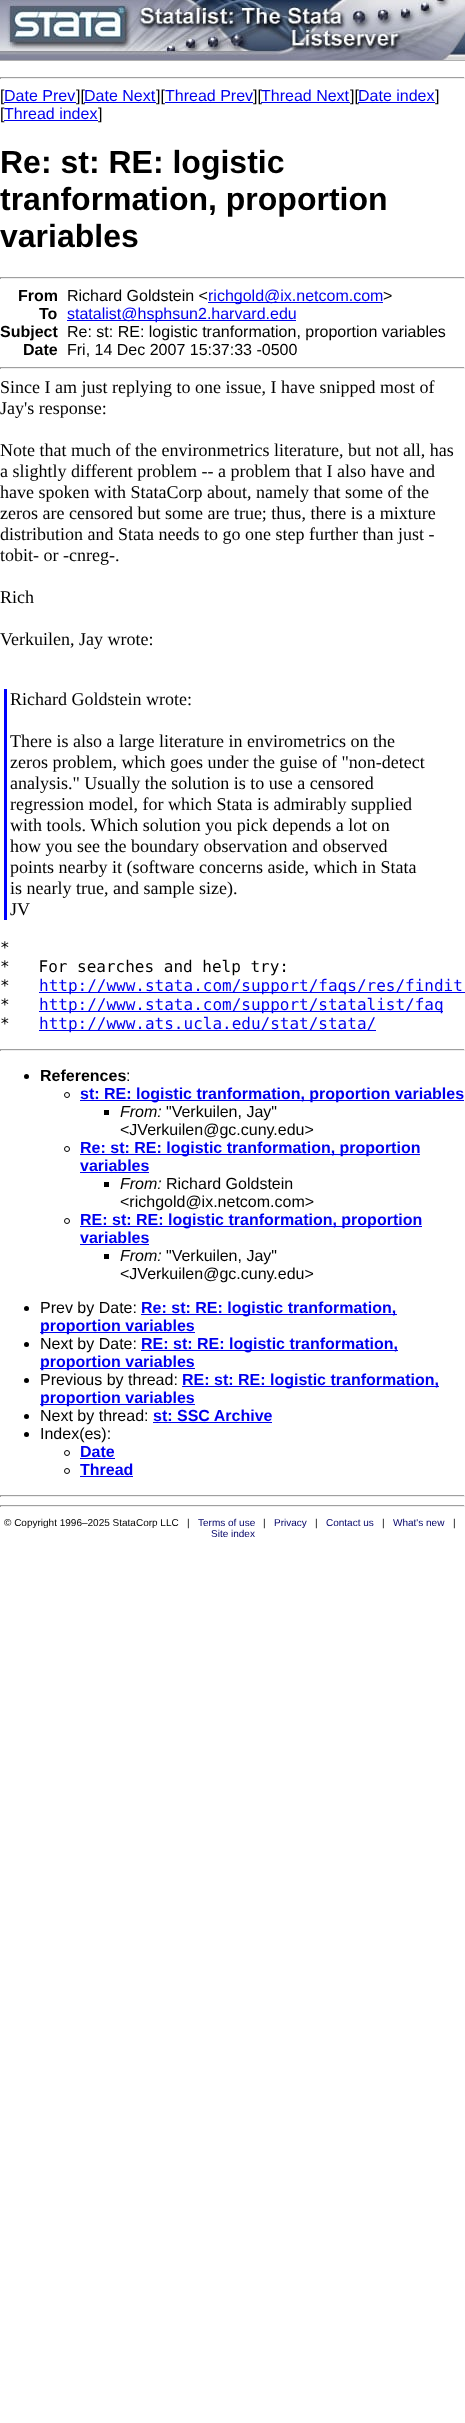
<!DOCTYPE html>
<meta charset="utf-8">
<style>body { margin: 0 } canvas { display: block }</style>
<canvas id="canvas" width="465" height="2423"></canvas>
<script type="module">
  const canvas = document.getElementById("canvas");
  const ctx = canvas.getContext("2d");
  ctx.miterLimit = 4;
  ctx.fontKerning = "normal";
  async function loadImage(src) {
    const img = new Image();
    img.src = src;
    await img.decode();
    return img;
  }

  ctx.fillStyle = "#ffffff";
  ctx.fillRect(0, 0, 465, 2423);
  ctx.fillStyle = "#afafaf";
  ctx.fillRect(0, 60, 465, 1);
  ctx.drawImage(await loadImage("img1.png"), 0, 0, 465, 60);
  ctx.fillStyle = "#9f9f9f";
  ctx.fillRect(0, 77, 465, 1);
  ctx.fillStyle = "#eeeeee";
  ctx.fillRect(464, 77, 1, 2);
  ctx.fillRect(0, 78, 465, 1);
  ctx.fillStyle = "#9f9f9f";
  ctx.fillRect(0, 77, 1, 2);
  ctx.font = "16px Liberation Sans";
  ctx.fillStyle = "#000000";
  ctx.fillText("[", 0, 101);
  ctx.fillStyle = "#0000ee";
  ctx.fillText("Date Prev", 4, 101);
  ctx.fillRect(4, 102, 72, 1);
  ctx.fillStyle = "#000000";
  ctx.fillText("][", 76, 101);
  ctx.fillStyle = "#0000ee";
  ctx.fillText("Date Next", 84, 101);
  ctx.fillRect(84, 102, 72, 1);
  ctx.fillStyle = "#000000";
  ctx.fillText("][", 156, 101);
  ctx.fillStyle = "#0000ee";
  ctx.fillText("Thread Prev", 165, 101);
  ctx.fillRect(165, 102, 88, 1);
  ctx.fillStyle = "#000000";
  ctx.fillText("][", 253, 101);
  ctx.fillStyle = "#0000ee";
  ctx.fillText("Thread Next", 261, 101);
  ctx.fillRect(261, 102, 89, 1);
  ctx.fillStyle = "#000000";
  ctx.fillText("][", 350, 101);
  ctx.fillStyle = "#0000ee";
  ctx.fillText("Date index", 358, 101);
  ctx.fillRect(358, 102, 77, 1);
  ctx.fillStyle = "#000000";
  ctx.fillText("]", 435, 101);
  ctx.fillText("[", 0, 119);
  ctx.fillStyle = "#0000ee";
  ctx.fillText("Thread index", 4, 119);
  ctx.fillRect(4, 120, 94, 1);
  ctx.fillStyle = "#000000";
  ctx.fillText("]", 98, 119);
  ctx.font = "bold 32px Liberation Sans";
  ctx.fillText("Re: st: RE: logistic", 0, 173);
  ctx.fillText("tranformation, proportion", 0, 210);
  ctx.fillText("variables", 0, 247);
  ctx.fillStyle = "#9f9f9f";
  ctx.fillRect(0, 277, 465, 1);
  ctx.fillStyle = "#eeeeee";
  ctx.fillRect(464, 277, 1, 2);
  ctx.fillRect(0, 278, 465, 1);
  ctx.fillStyle = "#9f9f9f";
  ctx.fillRect(0, 277, 1, 2);
  ctx.font = "bold 16px Liberation Sans";
  ctx.fillStyle = "#000000";
  ctx.fillText("From", 18, 301);
  ctx.font = "16px Liberation Sans";
  ctx.fillText("Richard Goldstein <", 67, 301);
  ctx.fillStyle = "#0000ee";
  ctx.fillRect(208, 302, 175, 1);
  ctx.fillText("richgold@ix.netcom.com", 208, 301);
  ctx.fillStyle = "#000000";
  ctx.fillText(">", 383, 301);
  ctx.font = "bold 16px Liberation Sans";
  ctx.fillText("To", 39, 319);
  ctx.fillStyle = "#0000ee";
  ctx.fillRect(67, 320, 229, 1);
  ctx.font = "16px Liberation Sans";
  ctx.fillText("statalist@hsphsun2.harvard.edu", 67, 319);
  ctx.font = "bold 16px Liberation Sans";
  ctx.fillStyle = "#000000";
  ctx.fillText("Subject", 0, 337);
  ctx.font = "16px Liberation Sans";
  ctx.fillText("Re: st: RE: logistic tranformation, proportion variables", 67, 337);
  ctx.font = "bold 16px Liberation Sans";
  ctx.fillText("Date", 23, 355);
  ctx.font = "16px Liberation Sans";
  ctx.fillText("Fri, 14 Dec 2007 15:37:33 -0500", 67, 355);
  ctx.fillStyle = "#9f9f9f";
  ctx.fillRect(0, 367, 465, 1);
  ctx.fillStyle = "#eeeeee";
  ctx.fillRect(464, 367, 1, 2);
  ctx.fillRect(0, 368, 465, 1);
  ctx.fillStyle = "#9f9f9f";
  ctx.fillRect(0, 367, 1, 2);
  ctx.font = "18px Liberation Serif";
  ctx.fillStyle = "#000000";
  ctx.fillText("Since I am just replying to one issue, I have snipped most of", 0, 393);
  ctx.fillText("Jay's response:", 0, 414);
  ctx.fillText("Note that much of the environmetrics literature, but not all, has", 0, 456);
  ctx.fillText("a slightly different problem -- a problem that I also have and", 0, 477);
  ctx.fillText("have spoken with StataCorp about, namely that some of the", 0, 498);
  ctx.fillText("zeros are censored but some are true; thus, there is a mixture", 0, 519);
  ctx.fillText("distribution and Stata needs to go one step further than just -", 0, 540);
  ctx.fillText("tobit- or -cnreg-.", 0, 561);
  ctx.fillText("Rich", 0, 603);
  ctx.fillText("Verkuilen, Jay wrote:", 0, 645);
  ctx.fillStyle = "#0000ff";
  ctx.fillRect(4, 689, 3, 231);
  ctx.fillStyle = "#000000";
  ctx.fillText("Richard Goldstein wrote:", 10, 705);
  ctx.fillText("There is also a large literature in envirometrics on the", 10, 747);
  ctx.fillText("zeros problem, which goes under the guise of \"non-detect", 10, 768);
  ctx.fillText("analysis.\" Usually the solution is to use a censored", 10, 789);
  ctx.fillText("regression model, for which Stata is admirably supplied", 10, 810);
  ctx.fillText("with tools. Which solution you pick depends a lot on", 10, 831);
  ctx.fillText("how you see the boundary observation and observed", 10, 852);
  ctx.fillText("points nearby it (software concerns aside, which in Stata", 10, 873);
  ctx.fillText("is nearly true, and sample size).", 10, 894);
  ctx.fillText("JV", 10, 915);
  ctx.font = "16px DejaVu Sans Mono";
  ctx.fillText("*", 0, 953);
  ctx.fillText("*   For searches and help try:", 0, 972);
  ctx.fillText("*", 0, 991);
  ctx.fillStyle = "#0000ee";
  ctx.fillRect(39, 992, 426, 1);
  ctx.fillText("http://www.stata.com/support/faqs/res/findit", 39, 991);
  ctx.fillStyle = "#000000";
  ctx.fillText("*", 0, 1010);
  ctx.fillStyle = "#0000ee";
  ctx.fillRect(39, 1011, 404, 1);
  ctx.fillText("http://www.stata.com/support/statalist/faq", 39, 1010);
  ctx.fillStyle = "#000000";
  ctx.fillText("*", 0, 1029);
  ctx.fillStyle = "#0000ee";
  ctx.fillRect(39, 1030, 337, 1);
  ctx.fillText("http://www.ats.ucla.edu/stat/stata/", 39, 1029);
  ctx.fillStyle = "#9f9f9f";
  ctx.fillRect(0, 1049, 465, 1);
  ctx.fillStyle = "#eeeeee";
  ctx.fillRect(464, 1049, 1, 2);
  ctx.fillRect(0, 1050, 465, 1);
  ctx.fillStyle = "#9f9f9f";
  ctx.fillRect(0, 1049, 1, 2);
  ctx.fillStyle = "#000000";
  ctx.beginPath();
  ctx.arc(26.5, 1076.5, 2.5, 0, Math.PI * 2);
  ctx.fill();
  ctx.font = "bold 16px Liberation Sans";
  ctx.fillText("References", 40, 1081);
  ctx.font = "16px Liberation Sans";
  ctx.fillText(":", 126, 1081);
  ctx.beginPath();
  ctx.arc(67, 1095, 2.5, 0, Math.PI * 2);
  ctx.strokeStyle = "#000000";
  ctx.stroke();
  ctx.fillStyle = "#0000ee";
  ctx.fillRect(80, 1100, 384, 1);
  ctx.font = "bold 16px Liberation Sans";
  ctx.fillText("st: RE: logistic tranformation, proportion variables", 80, 1099);
  ctx.fillStyle = "#000000";
  ctx.fillRect(104, 1110, 5, 5);
  ctx.font = "italic 16px Liberation Sans";
  ctx.fillText("From:", 120, 1117);
  ctx.font = "16px Liberation Sans";
  ctx.fillText("\"Verkuilen, Jay\"", 166, 1117);
  ctx.fillText("<JVerkuilen@gc.cuny.edu>", 120, 1135);
  ctx.beginPath();
  ctx.arc(67, 1149, 2.5, 0, Math.PI * 2);
  ctx.stroke();
  ctx.fillStyle = "#0000ee";
  ctx.fillRect(80, 1154, 340, 1);
  ctx.font = "bold 16px Liberation Sans";
  ctx.fillText("Re: st: RE: logistic tranformation, proportion", 80, 1153);
  ctx.fillText("variables", 80, 1171);
  ctx.fillRect(80, 1172, 69, 1);
  ctx.fillStyle = "#000000";
  ctx.fillRect(104, 1182, 5, 5);
  ctx.font = "italic 16px Liberation Sans";
  ctx.fillText("From:", 120, 1189);
  ctx.font = "16px Liberation Sans";
  ctx.fillText("Richard Goldstein", 166, 1189);
  ctx.fillText("<richgold@ix.netcom.com>", 120, 1207);
  ctx.beginPath();
  ctx.arc(67, 1221, 2.5, 0, Math.PI * 2);
  ctx.stroke();
  ctx.fillStyle = "#0000ee";
  ctx.fillRect(80, 1226, 342, 1);
  ctx.font = "bold 16px Liberation Sans";
  ctx.fillText("RE: st: RE: logistic tranformation, proportion", 80, 1225);
  ctx.fillText("variables", 80, 1243);
  ctx.fillRect(80, 1244, 69, 1);
  ctx.fillStyle = "#000000";
  ctx.fillRect(104, 1254, 5, 5);
  ctx.font = "italic 16px Liberation Sans";
  ctx.fillText("From:", 120, 1261);
  ctx.font = "16px Liberation Sans";
  ctx.fillText("\"Verkuilen, Jay\"", 166, 1261);
  ctx.fillText("<JVerkuilen@gc.cuny.edu>", 120, 1279);
  ctx.beginPath();
  ctx.arc(26.5, 1308.5, 2.5, 0, Math.PI * 2);
  ctx.fill();
  ctx.fillText("Prev by Date:", 40, 1313);
  ctx.fillStyle = "#0000ee";
  ctx.fillRect(141, 1314, 256, 1);
  ctx.font = "bold 16px Liberation Sans";
  ctx.fillText("Re: st: RE: logistic tranformation,", 141, 1313);
  ctx.fillRect(40, 1332, 155, 1);
  ctx.fillText("proportion variables", 40, 1331);
  ctx.fillStyle = "#000000";
  ctx.beginPath();
  ctx.arc(26.5, 1344.5, 2.5, 0, Math.PI * 2);
  ctx.fill();
  ctx.font = "16px Liberation Sans";
  ctx.fillText("Next by Date:", 40, 1349);
  ctx.fillStyle = "#0000ee";
  ctx.fillRect(141, 1350, 257, 1);
  ctx.font = "bold 16px Liberation Sans";
  ctx.fillText("RE: st: RE: logistic tranformation,", 141, 1349);
  ctx.fillRect(40, 1368, 155, 1);
  ctx.fillText("proportion variables", 40, 1367);
  ctx.fillStyle = "#000000";
  ctx.beginPath();
  ctx.arc(26.5, 1380.5, 2.5, 0, Math.PI * 2);
  ctx.fill();
  ctx.font = "16px Liberation Sans";
  ctx.fillText("Previous by thread:", 40, 1385);
  ctx.fillStyle = "#0000ee";
  ctx.fillRect(182, 1386, 257, 1);
  ctx.font = "bold 16px Liberation Sans";
  ctx.fillText("RE: st: RE: logistic tranformation,", 182, 1385);
  ctx.fillRect(40, 1404, 155, 1);
  ctx.fillText("proportion variables", 40, 1403);
  ctx.fillStyle = "#000000";
  ctx.beginPath();
  ctx.arc(26.5, 1416.5, 2.5, 0, Math.PI * 2);
  ctx.fill();
  ctx.font = "16px Liberation Sans";
  ctx.fillText("Next by thread:", 40, 1421);
  ctx.font = "bold 16px Liberation Sans";
  ctx.fillStyle = "#0000ee";
  ctx.fillText("st: SSC Archive", 153, 1421);
  ctx.fillRect(153, 1422, 119, 1);
  ctx.fillStyle = "#000000";
  ctx.beginPath();
  ctx.arc(26.5, 1434.5, 2.5, 0, Math.PI * 2);
  ctx.fill();
  ctx.font = "16px Liberation Sans";
  ctx.fillText("Index(es):", 40, 1439);
  ctx.beginPath();
  ctx.arc(67, 1453, 2.5, 0, Math.PI * 2);
  ctx.stroke();
  ctx.font = "bold 16px Liberation Sans";
  ctx.fillStyle = "#0000ee";
  ctx.fillText("Date", 80, 1457);
  ctx.fillRect(80, 1458, 35, 1);
  ctx.beginPath();
  ctx.arc(67, 1471, 2.5, 0, Math.PI * 2);
  ctx.stroke();
  ctx.fillText("Thread", 80, 1475);
  ctx.fillRect(80, 1476, 53, 1);
  ctx.fillStyle = "#9f9f9f";
  ctx.fillRect(0, 1495, 465, 1);
  ctx.fillStyle = "#eeeeee";
  ctx.fillRect(464, 1495, 1, 2);
  ctx.fillRect(0, 1496, 465, 1);
  ctx.fillStyle = "#9f9f9f";
  ctx.fillRect(0, 1495, 1, 2);
  ctx.fillRect(0, 1505, 465, 1);
  ctx.fillStyle = "#eeeeee";
  ctx.fillRect(464, 1505, 1, 2);
  ctx.fillRect(0, 1506, 465, 1);
  ctx.fillStyle = "#9f9f9f";
  ctx.fillRect(0, 1505, 1, 2);
  ctx.font = "10px Liberation Sans";
  ctx.fillStyle = "#000000";
  ctx.fillText("© Copyright 1996–2025 StataCorp LLC", 4, 1526);
  ctx.fillText("|", 187, 1526);
  ctx.fillStyle = "#000066";
  ctx.fillText("Terms of use", 198, 1526);
  ctx.fillStyle = "#000000";
  ctx.fillText("|", 263, 1526);
  ctx.fillStyle = "#000066";
  ctx.fillText("Privacy", 274, 1526);
  ctx.fillStyle = "#000000";
  ctx.fillText("|", 315, 1526);
  ctx.fillStyle = "#000066";
  ctx.fillText("Contact us", 326, 1526);
  ctx.fillStyle = "#000000";
  ctx.fillText("|", 382, 1526);
  ctx.fillStyle = "#000066";
  ctx.fillText("What's new", 393, 1526);
  ctx.fillStyle = "#000000";
  ctx.fillText("|", 453, 1526);
  ctx.fillStyle = "#000066";
  ctx.fillText("Site index", 211, 1537);
</script>
